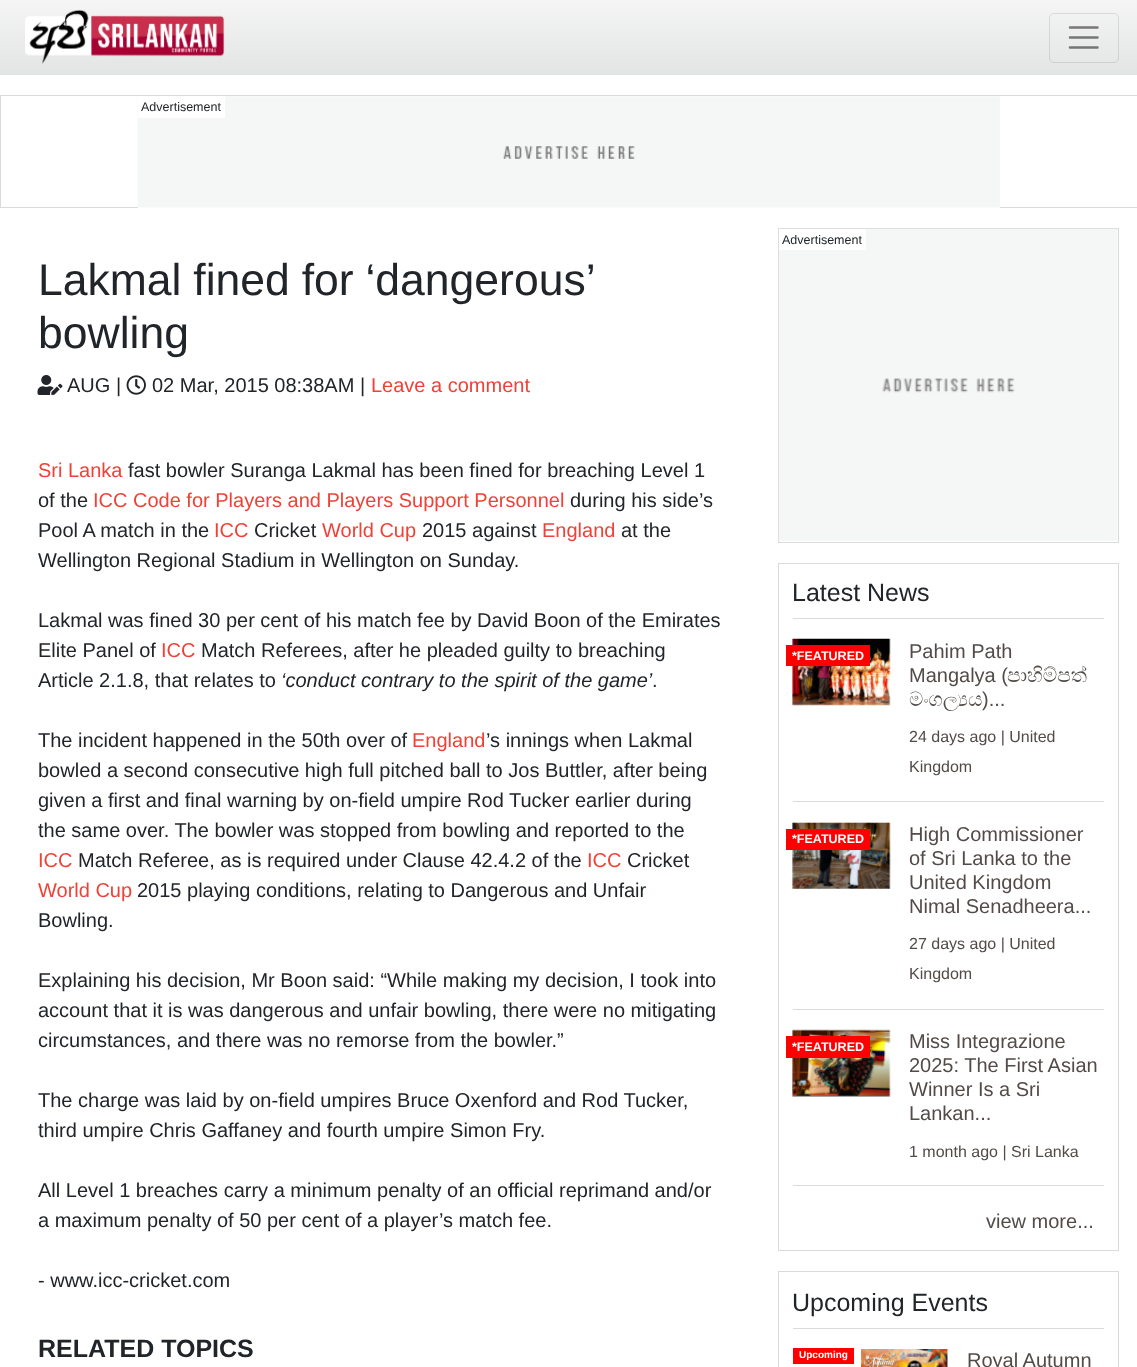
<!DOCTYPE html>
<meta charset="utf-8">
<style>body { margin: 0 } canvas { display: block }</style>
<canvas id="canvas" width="1137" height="1367"></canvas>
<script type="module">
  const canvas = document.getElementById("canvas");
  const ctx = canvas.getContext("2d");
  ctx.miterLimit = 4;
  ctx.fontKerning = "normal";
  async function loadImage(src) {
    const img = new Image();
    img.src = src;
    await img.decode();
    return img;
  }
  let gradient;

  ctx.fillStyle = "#ffffff";
  ctx.fillRect(0, 0, 1137, 1367);
  gradient = ctx.createLinearGradient(569, 0, 569, 75);
  gradient.addColorStop(0, "#f5f5f5");
  gradient.addColorStop(1, "#e3e4e4");
  ctx.fillStyle = gradient;
  ctx.fillRect(0, 0, 1137, 75);
  ctx.drawImage(await loadImage("img1.png"), 25, 9, 200, 55);
  ctx.beginPath();
  ctx.roundRect(1049.5, 13.5, 69, 49, 4.5);
  ctx.strokeStyle = "rgba(0, 0, 0, 0.1)";
  ctx.stroke();
  ctx.beginPath();
  ctx.moveTo(1070, 27.5);
  ctx.lineTo(1097.5, 27.5);
  ctx.moveTo(1070, 37.5);
  ctx.lineTo(1097.5, 37.5);
  ctx.moveTo(1070, 47.5);
  ctx.lineTo(1097.5, 47.5);
  ctx.strokeStyle = "rgba(0, 0, 0, 0.5)";
  ctx.lineWidth = 2.5;
  ctx.lineCap = "round";
  ctx.stroke();
  ctx.strokeStyle = "#dadada";
  ctx.lineWidth = 1;
  ctx.strokeRect(0.5, 95.5, 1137, 112);
  ctx.fillStyle = "#ffffff";
  ctx.fillRect(138, 207, 862, 1);
  ctx.drawImage(await loadImage("img2.png"), 137, 96, 863, 112);
  ctx.fillRect(138, 96, 87, 22);
  ctx.font = "12.5px Liberation Sans";
  ctx.fillStyle = "#212529";
  ctx.fillText("Advertisement", 141, 111);
  ctx.wordSpacing = "-0.5px";
  ctx.font = "44.5px Liberation Sans";
  ctx.fillText("Lakmal fined for ‘dangerous’", 38, 295);
  ctx.wordSpacing = "0px";
  ctx.fillText("bowling", 38, 348);
  ctx.drawImage(await loadImage("img3.png"), 37, 375, 26, 20);
  ctx.font = "20px Liberation Sans";
  ctx.fillText("AUG |", 67, 392);
  ctx.drawImage(await loadImage("img4.png"), 126, 375, 20, 20);
  ctx.fillText("02 Mar, 2015 08:38AM |", 152, 392);
  ctx.fillStyle = "#ef4135";
  ctx.fillText("Leave a comment", 371, 392);
  ctx.fillText("Sri Lanka", 38, 477);
  ctx.fillStyle = "#212529";
  ctx.fillText("fast bowler Suranga Lakmal has been fined for breaching Level 1", 128, 477);
  ctx.fillText("of the", 38, 507);
  ctx.fillStyle = "#ef4135";
  ctx.fillText("ICC Code for Players and Players Support Personnel", 93, 507);
  ctx.fillStyle = "#212529";
  ctx.fillText("during his side’s", 570, 507);
  ctx.fillText("Pool A match in the", 38, 537);
  ctx.fillStyle = "#ef4135";
  ctx.fillText("ICC", 214, 537);
  ctx.fillStyle = "#212529";
  ctx.fillText("Cricket", 254, 537);
  ctx.fillStyle = "#ef4135";
  ctx.fillText("World Cup", 322, 537);
  ctx.fillStyle = "#212529";
  ctx.fillText("2015 against", 422, 537);
  ctx.fillStyle = "#ef4135";
  ctx.fillText("England", 542, 537);
  ctx.fillStyle = "#212529";
  ctx.fillText("at the", 621, 537);
  ctx.fillText("Wellington Regional Stadium in Wellington on Sunday.", 38, 567);
  ctx.fillText("Lakmal was fined 30 per cent of his match fee by David Boon of the Emirates", 38, 627);
  ctx.fillText("Elite Panel of", 38, 657);
  ctx.fillStyle = "#ef4135";
  ctx.fillText("ICC", 161, 657);
  ctx.fillStyle = "#212529";
  ctx.fillText("Match Referees, after he pleaded guilty to breaching", 201, 657);
  ctx.fillText("Article 2.1.8, that relates to", 38, 687);
  ctx.font = "italic 20px Liberation Sans";
  ctx.fillText("‘conduct contrary to the spirit of the game’", 281, 687);
  ctx.font = "20px Liberation Sans";
  ctx.fillText(".", 652, 687);
  ctx.fillText("The incident happened in the 50th over of", 38, 747);
  ctx.fillStyle = "#ef4135";
  ctx.fillText("England", 412, 747);
  ctx.fillStyle = "#212529";
  ctx.fillText("’s innings when Lakmal", 486, 747);
  ctx.fillText("bowled a second consecutive high full pitched ball to Jos Buttler, after being", 38, 777);
  ctx.fillText("given a first and final warning by on-field umpire Rod Tucker earlier during", 38, 807);
  ctx.fillText("the same over. The bowler was stopped from bowling and reported to the", 38, 837);
  ctx.fillStyle = "#ef4135";
  ctx.fillText("ICC", 38, 867);
  ctx.fillStyle = "#212529";
  ctx.fillText("Match Referee, as is required under Clause 42.4.2 of the", 78, 867);
  ctx.fillStyle = "#ef4135";
  ctx.fillText("ICC", 587, 867);
  ctx.fillStyle = "#212529";
  ctx.fillText("Cricket", 627, 867);
  ctx.fillStyle = "#ef4135";
  ctx.fillText("World Cup", 38, 897);
  ctx.fillStyle = "#212529";
  ctx.fillText("2015 playing conditions, relating to Dangerous and Unfair", 137, 897);
  ctx.fillText("Bowling.", 38, 927);
  ctx.fillText("Explaining his decision, Mr Boon said: “While making my decision, I took into", 38, 987);
  ctx.fillText("account that it is was dangerous and unfair bowling, there were no mitigating", 38, 1017);
  ctx.fillText("circumstances, and there was no remorse from the bowler.”", 38, 1047);
  ctx.fillText("The charge was laid by on-field umpires Bruce Oxenford and Rod Tucker,", 38, 1107);
  ctx.fillText("third umpire Chris Gaffaney and fourth umpire Simon Fry.", 38, 1137);
  ctx.fillText("All Level 1 breaches carry a minimum penalty of an official reprimand and/or", 38, 1197);
  ctx.fillText("a maximum penalty of 50 per cent of a player’s match fee.", 38, 1227);
  ctx.fillText("- www.icc-cricket.com", 38, 1287);
  ctx.font = "bold 25px Liberation Sans";
  ctx.fillText("RELATED TOPICS", 38, 1357);
  ctx.strokeRect(778.5, 228.5, 340, 314);
  ctx.drawImage(await loadImage("img5.png"), 778, 228, 340, 313);
  ctx.fillStyle = "#ffffff";
  ctx.fillRect(779, 229, 87, 21);
  ctx.font = "12.5px Liberation Sans";
  ctx.fillStyle = "#212529";
  ctx.fillText("Advertisement", 782, 244);
  ctx.strokeRect(778.5, 563.5, 340, 687);
  ctx.fillStyle = "#dadada";
  ctx.fillRect(793, 618, 311, 1);
  ctx.font = "25px Liberation Sans";
  ctx.fillStyle = "#212529";
  ctx.fillText("Latest News", 792, 601);
  ctx.fillStyle = "#dadada";
  ctx.fillRect(793, 801, 311, 1);
  ctx.drawImage(await loadImage("img6.png"), 792, 638, 99, 68);
  ctx.font = "20px Liberation Sans";
  ctx.fillStyle = "#524b48";
  ctx.fillText("Pahim Path", 909, 658);
  ctx.fillText("Mangalya (", 909, 682);
  ctx.font = "20px FreeSerif";
  ctx.fillText("පාහිම්පත්", 1007, 682);
  ctx.fillText("මංගල්‍යය", 909, 706);
  ctx.font = "20px Liberation Sans";
  ctx.fillText(")...", 982, 706);
  ctx.font = "16px Liberation Sans";
  ctx.fillText("24 days ago | United", 909, 742);
  ctx.fillText("Kingdom", 909, 772);
  ctx.fillStyle = "#ff0000";
  ctx.fillRect(786, 645, 84, 21);
  ctx.font = "bold 12.5px Liberation Sans";
  ctx.fillStyle = "#ffffff";
  ctx.fillText("*FEATURED", 792, 660);
  ctx.fillStyle = "#dadada";
  ctx.fillRect(793, 1009, 311, 1);
  ctx.drawImage(await loadImage("img7.png"), 792, 822, 99, 67);
  ctx.font = "20px Liberation Sans";
  ctx.fillStyle = "#524b48";
  ctx.fillText("High Commissioner", 909, 841);
  ctx.fillText("of Sri Lanka to the", 909, 865);
  ctx.fillText("United Kingdom", 909, 889);
  ctx.fillText("Nimal Senadheera...", 909, 913);
  ctx.font = "16px Liberation Sans";
  ctx.fillText("27 days ago | United", 909, 949);
  ctx.fillText("Kingdom", 909, 979);
  ctx.fillStyle = "#ff0000";
  ctx.fillRect(786, 829, 84, 21);
  ctx.font = "bold 12.5px Liberation Sans";
  ctx.fillStyle = "#ffffff";
  ctx.fillText("*FEATURED", 792, 843);
  ctx.fillStyle = "#dadada";
  ctx.fillRect(793, 1185, 311, 1);
  ctx.drawImage(await loadImage("img8.png"), 792, 1029, 99, 68);
  ctx.font = "20px Liberation Sans";
  ctx.fillStyle = "#524b48";
  ctx.fillText("Miss Integrazione", 909, 1048);
  ctx.fillText("2025: The First Asian", 909, 1072);
  ctx.fillText("Winner Is a Sri", 909, 1096);
  ctx.fillText("Lankan...", 909, 1120);
  ctx.font = "16px Liberation Sans";
  ctx.fillText("1 month ago | Sri Lanka", 909, 1157);
  ctx.fillStyle = "#ff0000";
  ctx.fillRect(786, 1036, 84, 22);
  ctx.font = "bold 12.5px Liberation Sans";
  ctx.fillStyle = "#ffffff";
  ctx.fillText("*FEATURED", 792, 1051);
  ctx.font = "20px Liberation Sans";
  ctx.fillStyle = "#524b48";
  ctx.fillText("view more...", 986, 1228);
  ctx.strokeRect(778.5, 1271.5, 340, 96);
  ctx.fillStyle = "#dadada";
  ctx.fillRect(793, 1328, 311, 1);
  ctx.font = "25px Liberation Sans";
  ctx.fillStyle = "#212529";
  ctx.fillText("Upcoming Events", 792, 1311);
  ctx.fillStyle = "#ff0000";
  ctx.fillRect(793, 1348, 61, 16);
  ctx.font = "bold 10px Liberation Sans";
  ctx.fillStyle = "#ffffff";
  ctx.fillText("Upcoming", 799, 1358);
  ctx.drawImage(await loadImage("img9.png"), 861, 1349, 87, 18);
  ctx.font = "20px Liberation Sans";
  ctx.fillStyle = "#524b48";
  ctx.fillText("Royal Autumn", 967, 1367);
</script>
